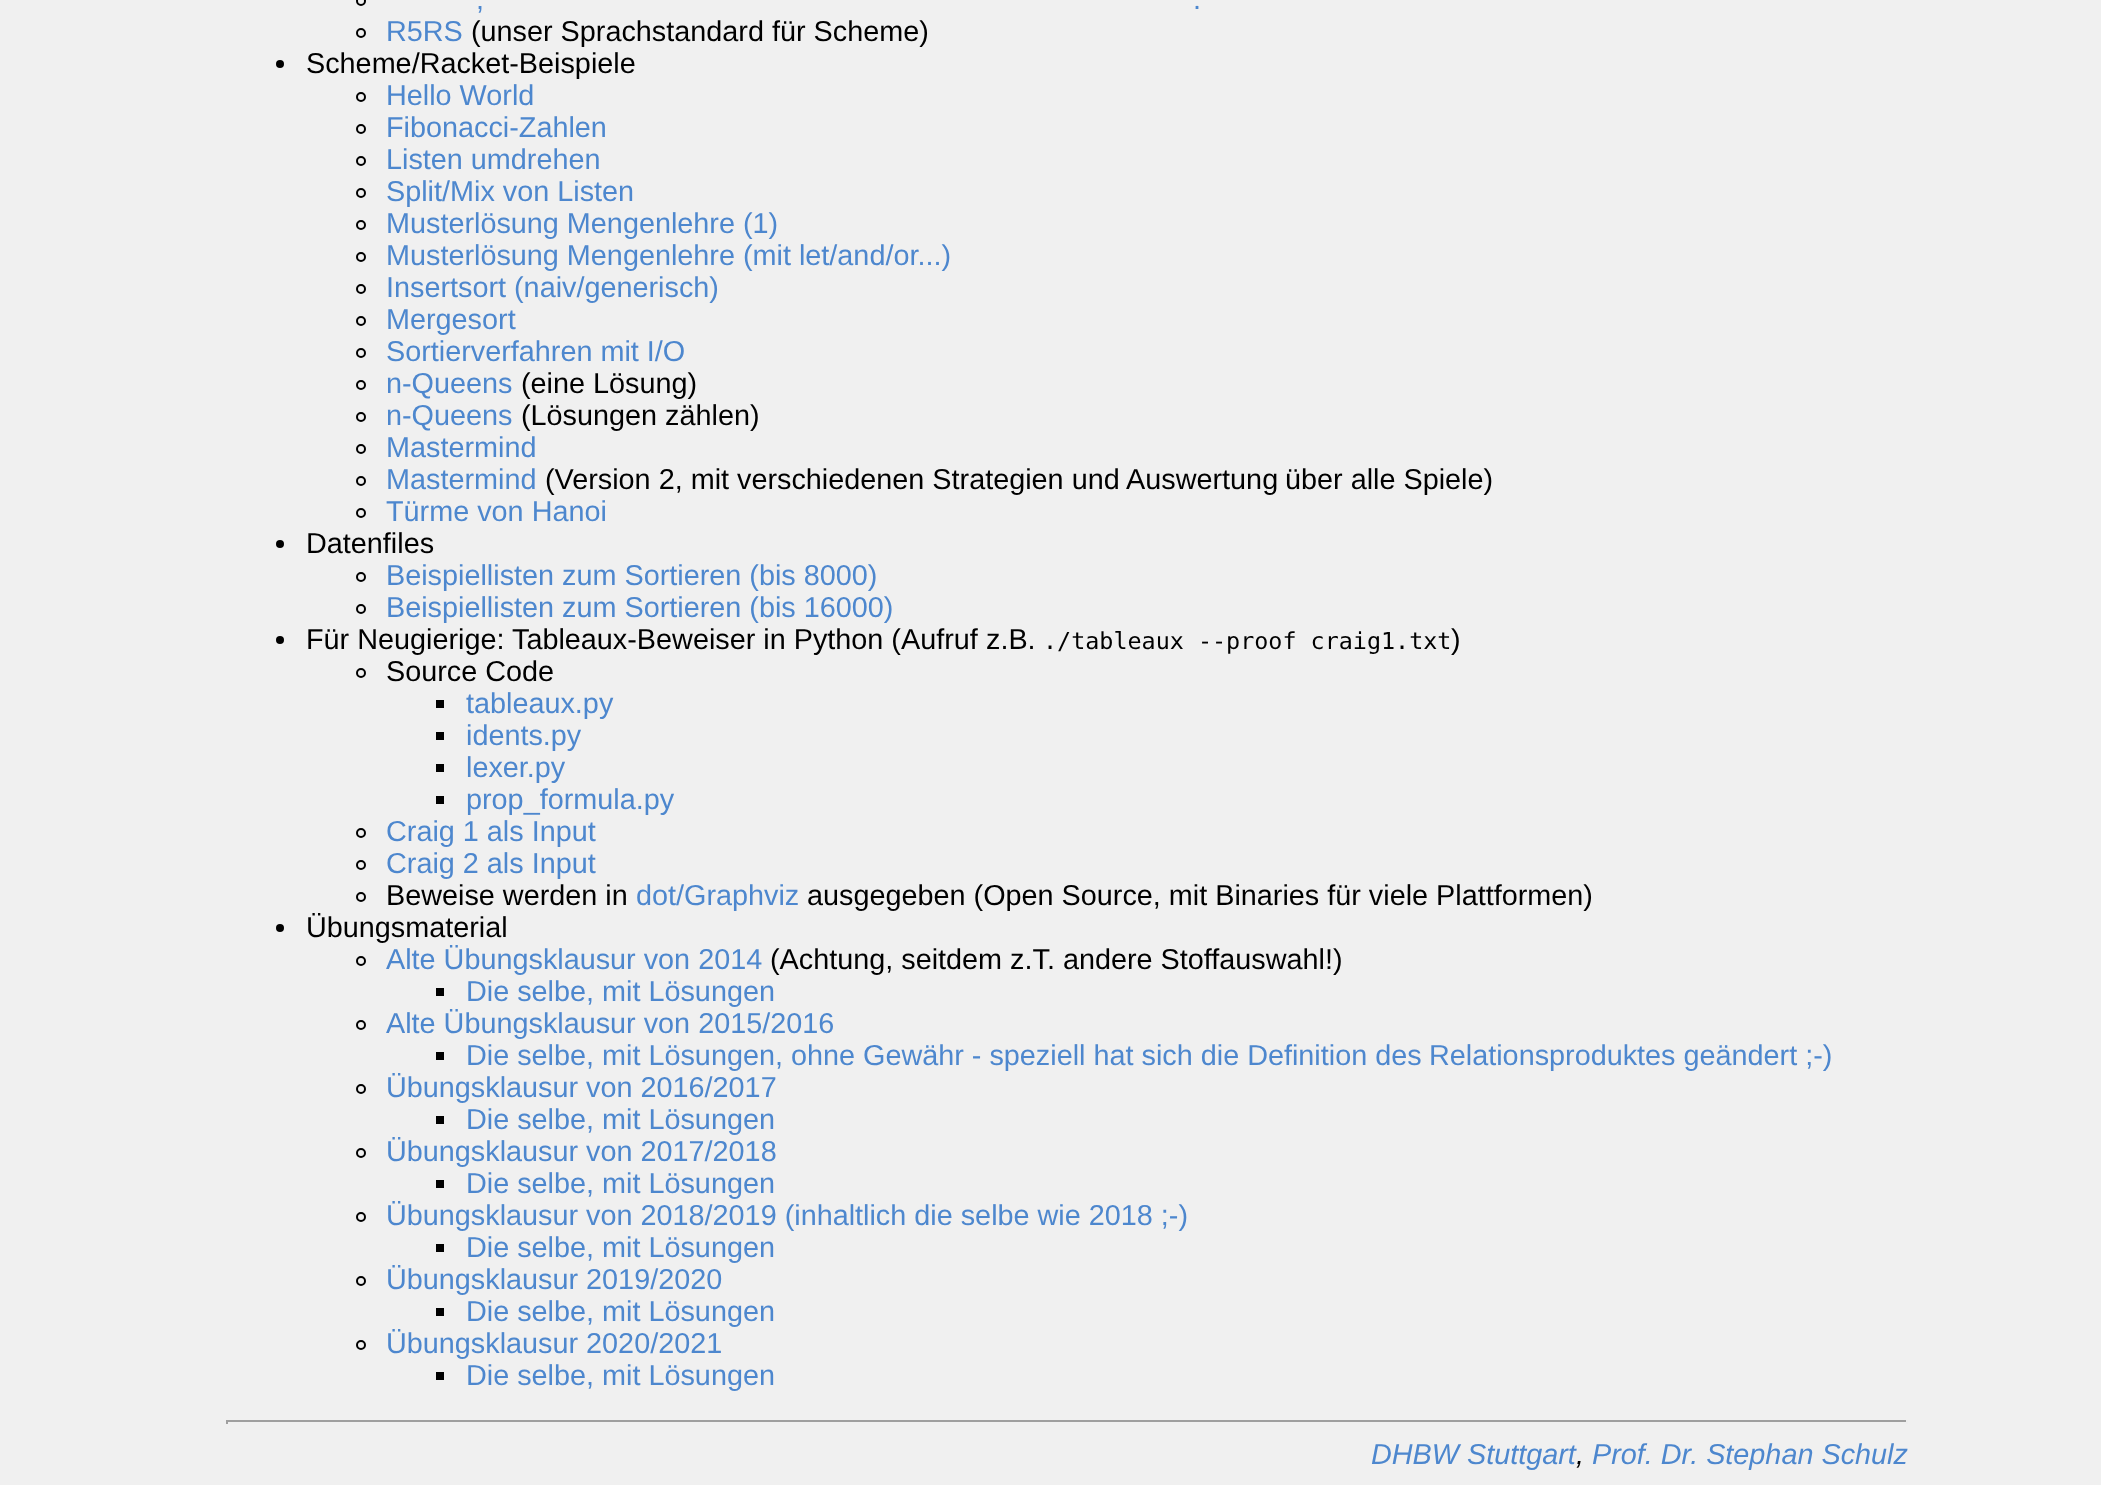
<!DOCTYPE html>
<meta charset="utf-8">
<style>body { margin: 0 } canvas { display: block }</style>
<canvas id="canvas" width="2101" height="1485"></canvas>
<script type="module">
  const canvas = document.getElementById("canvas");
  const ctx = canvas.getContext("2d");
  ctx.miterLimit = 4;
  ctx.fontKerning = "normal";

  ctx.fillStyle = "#f0f0f0";
  ctx.fillRect(0, 0, 2101, 1485);
  ctx.beginPath();
  ctx.arc(361, 1, 4, 0, Math.PI * 2);
  ctx.strokeStyle = "#000000";
  ctx.lineWidth = 2;
  ctx.stroke();
  ctx.font = "28.8px Liberation Sans";
  ctx.fillStyle = "#4d87ce";
  ctx.fillText(",", 476, 9);
  ctx.fillText(".", 1193, 9);
  ctx.beginPath();
  ctx.arc(361, 33, 4, 0, Math.PI * 2);
  ctx.stroke();
  ctx.fillText("R5RS", 386, 41);
  ctx.fillStyle = "#000000";
  ctx.fillText("(unser Sprachstandard für Scheme)", 471, 41);
  ctx.beginPath();
  ctx.arc(280, 64, 4, 0, Math.PI * 2);
  ctx.fill();
  ctx.fillText("Scheme/Racket-Beispiele", 306, 73);
  ctx.beginPath();
  ctx.arc(361, 97, 4, 0, Math.PI * 2);
  ctx.stroke();
  ctx.fillStyle = "#4d87ce";
  ctx.fillText("Hello World", 386, 105);
  ctx.beginPath();
  ctx.arc(361, 129, 4, 0, Math.PI * 2);
  ctx.stroke();
  ctx.fillText("Fibonacci-Zahlen", 386, 137);
  ctx.beginPath();
  ctx.arc(361, 161, 4, 0, Math.PI * 2);
  ctx.stroke();
  ctx.fillText("Listen umdrehen", 386, 169);
  ctx.beginPath();
  ctx.arc(361, 193, 4, 0, Math.PI * 2);
  ctx.stroke();
  ctx.fillText("Split/Mix von Listen", 386, 201);
  ctx.beginPath();
  ctx.arc(361, 225, 4, 0, Math.PI * 2);
  ctx.stroke();
  ctx.fillText("Musterlösung Mengenlehre (1)", 386, 233);
  ctx.beginPath();
  ctx.arc(361, 257, 4, 0, Math.PI * 2);
  ctx.stroke();
  ctx.fillText("Musterlösung Mengenlehre (mit let/and/or...)", 386, 265);
  ctx.beginPath();
  ctx.arc(361, 289, 4, 0, Math.PI * 2);
  ctx.stroke();
  ctx.fillText("Insertsort (naiv/generisch)", 386, 297);
  ctx.beginPath();
  ctx.arc(361, 321, 4, 0, Math.PI * 2);
  ctx.stroke();
  ctx.fillText("Mergesort", 386, 329);
  ctx.beginPath();
  ctx.arc(361, 353, 4, 0, Math.PI * 2);
  ctx.stroke();
  ctx.fillText("Sortierverfahren mit I/O", 386, 361);
  ctx.beginPath();
  ctx.arc(361, 385, 4, 0, Math.PI * 2);
  ctx.stroke();
  ctx.fillText("n-Queens", 386, 393);
  ctx.fillStyle = "#000000";
  ctx.fillText("(eine Lösung)", 521, 393);
  ctx.beginPath();
  ctx.arc(361, 417, 4, 0, Math.PI * 2);
  ctx.stroke();
  ctx.fillStyle = "#4d87ce";
  ctx.fillText("n-Queens", 386, 425);
  ctx.fillStyle = "#000000";
  ctx.fillText("(Lösungen zählen)", 521, 425);
  ctx.beginPath();
  ctx.arc(361, 449, 4, 0, Math.PI * 2);
  ctx.stroke();
  ctx.fillStyle = "#4d87ce";
  ctx.fillText("Mastermind", 386, 457);
  ctx.beginPath();
  ctx.arc(361, 481, 4, 0, Math.PI * 2);
  ctx.stroke();
  ctx.fillText("Mastermind", 386, 489);
  ctx.fillStyle = "#000000";
  ctx.fillText("(Version 2, mit verschiedenen Strategien und Auswertung", 545, 489);
  ctx.fillText("über alle Spiele)", 1285, 489);
  ctx.beginPath();
  ctx.arc(361, 513, 4, 0, Math.PI * 2);
  ctx.stroke();
  ctx.fillStyle = "#4d87ce";
  ctx.fillText("Türme von Hanoi", 386, 521);
  ctx.fillStyle = "#000000";
  ctx.beginPath();
  ctx.arc(280, 544, 4, 0, Math.PI * 2);
  ctx.fill();
  ctx.fillText("Datenfiles", 306, 553);
  ctx.beginPath();
  ctx.arc(361, 577, 4, 0, Math.PI * 2);
  ctx.stroke();
  ctx.fillStyle = "#4d87ce";
  ctx.fillText("Beispiellisten zum Sortieren (bis 8000)", 386, 585);
  ctx.beginPath();
  ctx.arc(361, 609, 4, 0, Math.PI * 2);
  ctx.stroke();
  ctx.fillText("Beispiellisten zum Sortieren (bis 16000)", 386, 617);
  ctx.fillStyle = "#000000";
  ctx.beginPath();
  ctx.arc(280, 640, 4, 0, Math.PI * 2);
  ctx.fill();
  ctx.fillText("Für Neugierige:", 306, 649);
  ctx.fillText("Tableaux-Beweiser in Python (Aufruf", 512, 649);
  ctx.fillText("z.B.", 986, 649);
  ctx.font = "23.4px DejaVu Sans Mono";
  ctx.fillText("./tableaux --proof craig1.txt", 1043, 649);
  ctx.font = "28.8px Liberation Sans";
  ctx.fillText(")", 1451, 649);
  ctx.beginPath();
  ctx.arc(361, 673, 4, 0, Math.PI * 2);
  ctx.stroke();
  ctx.fillText("Source Code", 386, 681);
  ctx.fillRect(436, 700, 8, 8);
  ctx.fillStyle = "#4d87ce";
  ctx.fillText("tableaux.py", 466, 713);
  ctx.fillStyle = "#000000";
  ctx.fillRect(436, 732, 8, 8);
  ctx.fillStyle = "#4d87ce";
  ctx.fillText("idents.py", 466, 745);
  ctx.fillStyle = "#000000";
  ctx.fillRect(436, 764, 8, 8);
  ctx.fillStyle = "#4d87ce";
  ctx.fillText("lexer.py", 466, 777);
  ctx.fillStyle = "#000000";
  ctx.fillRect(436, 796, 8, 8);
  ctx.fillStyle = "#4d87ce";
  ctx.fillText("prop_formula.py", 466, 809);
  ctx.beginPath();
  ctx.arc(361, 833, 4, 0, Math.PI * 2);
  ctx.stroke();
  ctx.fillText("Craig 1 als Input", 386, 841);
  ctx.beginPath();
  ctx.arc(361, 865, 4, 0, Math.PI * 2);
  ctx.stroke();
  ctx.fillText("Craig 2 als Input", 386, 873);
  ctx.beginPath();
  ctx.arc(361, 897, 4, 0, Math.PI * 2);
  ctx.stroke();
  ctx.fillStyle = "#000000";
  ctx.fillText("Beweise werden in", 386, 905);
  ctx.fillStyle = "#4d87ce";
  ctx.fillText("dot/Graphviz", 636, 905);
  ctx.fillStyle = "#000000";
  ctx.fillText("ausgegeben (Open Source, mit Binaries für viele Plattformen)", 807, 905);
  ctx.beginPath();
  ctx.arc(280, 928, 4, 0, Math.PI * 2);
  ctx.fill();
  ctx.fillText("Übungsmaterial", 306, 937);
  ctx.beginPath();
  ctx.arc(361, 961, 4, 0, Math.PI * 2);
  ctx.stroke();
  ctx.fillStyle = "#4d87ce";
  ctx.fillText("Alte Übungsklausur von 2014", 386, 969);
  ctx.fillStyle = "#000000";
  ctx.fillText("(Achtung, seitdem z.T. andere Stoffauswahl!)", 770, 969);
  ctx.fillRect(436, 988, 8, 8);
  ctx.fillStyle = "#4d87ce";
  ctx.fillText("Die selbe, mit Lösungen", 466, 1001);
  ctx.beginPath();
  ctx.arc(361, 1025, 4, 0, Math.PI * 2);
  ctx.stroke();
  ctx.fillText("Alte Übungsklausur von 2015/2016", 386, 1033);
  ctx.fillStyle = "#000000";
  ctx.fillRect(436, 1052, 8, 8);
  ctx.fillStyle = "#4d87ce";
  ctx.fillText("Die selbe, mit Lösungen, ohne Gewähr - speziell hat sich die Definition des", 466, 1065);
  ctx.fillText("Relationsproduktes geändert ;-)", 1429, 1065);
  ctx.beginPath();
  ctx.arc(361, 1089, 4, 0, Math.PI * 2);
  ctx.stroke();
  ctx.fillText("Übungsklausur von 2016/2017", 386, 1097);
  ctx.fillStyle = "#000000";
  ctx.fillRect(436, 1116, 8, 8);
  ctx.fillStyle = "#4d87ce";
  ctx.fillText("Die selbe, mit Lösungen", 466, 1129);
  ctx.beginPath();
  ctx.arc(361, 1153, 4, 0, Math.PI * 2);
  ctx.stroke();
  ctx.fillText("Übungsklausur von 2017/2018", 386, 1161);
  ctx.fillStyle = "#000000";
  ctx.fillRect(436, 1180, 8, 8);
  ctx.fillStyle = "#4d87ce";
  ctx.fillText("Die selbe, mit Lösungen", 466, 1193);
  ctx.beginPath();
  ctx.arc(361, 1217, 4, 0, Math.PI * 2);
  ctx.stroke();
  ctx.fillText("Übungsklausur von 2018/2019 (inhaltlich die selbe wie 2018 ;-)", 386, 1225);
  ctx.fillStyle = "#000000";
  ctx.fillRect(436, 1244, 8, 8);
  ctx.fillStyle = "#4d87ce";
  ctx.fillText("Die selbe, mit Lösungen", 466, 1257);
  ctx.beginPath();
  ctx.arc(361, 1281, 4, 0, Math.PI * 2);
  ctx.stroke();
  ctx.fillText("Übungsklausur 2019/2020", 386, 1289);
  ctx.fillStyle = "#000000";
  ctx.fillRect(436, 1308, 8, 8);
  ctx.fillStyle = "#4d87ce";
  ctx.fillText("Die selbe, mit Lösungen", 466, 1321);
  ctx.beginPath();
  ctx.arc(361, 1345, 4, 0, Math.PI * 2);
  ctx.stroke();
  ctx.fillText("Übungsklausur 2020/2021", 386, 1353);
  ctx.fillStyle = "#000000";
  ctx.fillRect(436, 1372, 8, 8);
  ctx.fillStyle = "#4d87ce";
  ctx.fillText("Die selbe, mit Lösungen", 466, 1385);
  ctx.fillStyle = "#9f9f9f";
  ctx.fillRect(226, 1420, 1682, 2);
  ctx.fillStyle = "#eeeeee";
  ctx.fillRect(1906, 1420, 2, 4);
  ctx.fillStyle = "#9f9f9f";
  ctx.fillRect(226, 1420, 2, 4);
  ctx.font = "italic 28.8px Liberation Sans";
  ctx.fillStyle = "#4d87ce";
  ctx.fillText("DHBW Stuttgart", 1371, 1464);
  ctx.fillStyle = "#000000";
  ctx.fillText(",", 1576, 1464);
  ctx.fillStyle = "#4d87ce";
  ctx.fillText("Prof. Dr. Stephan Schulz", 1592, 1464);
</script>
